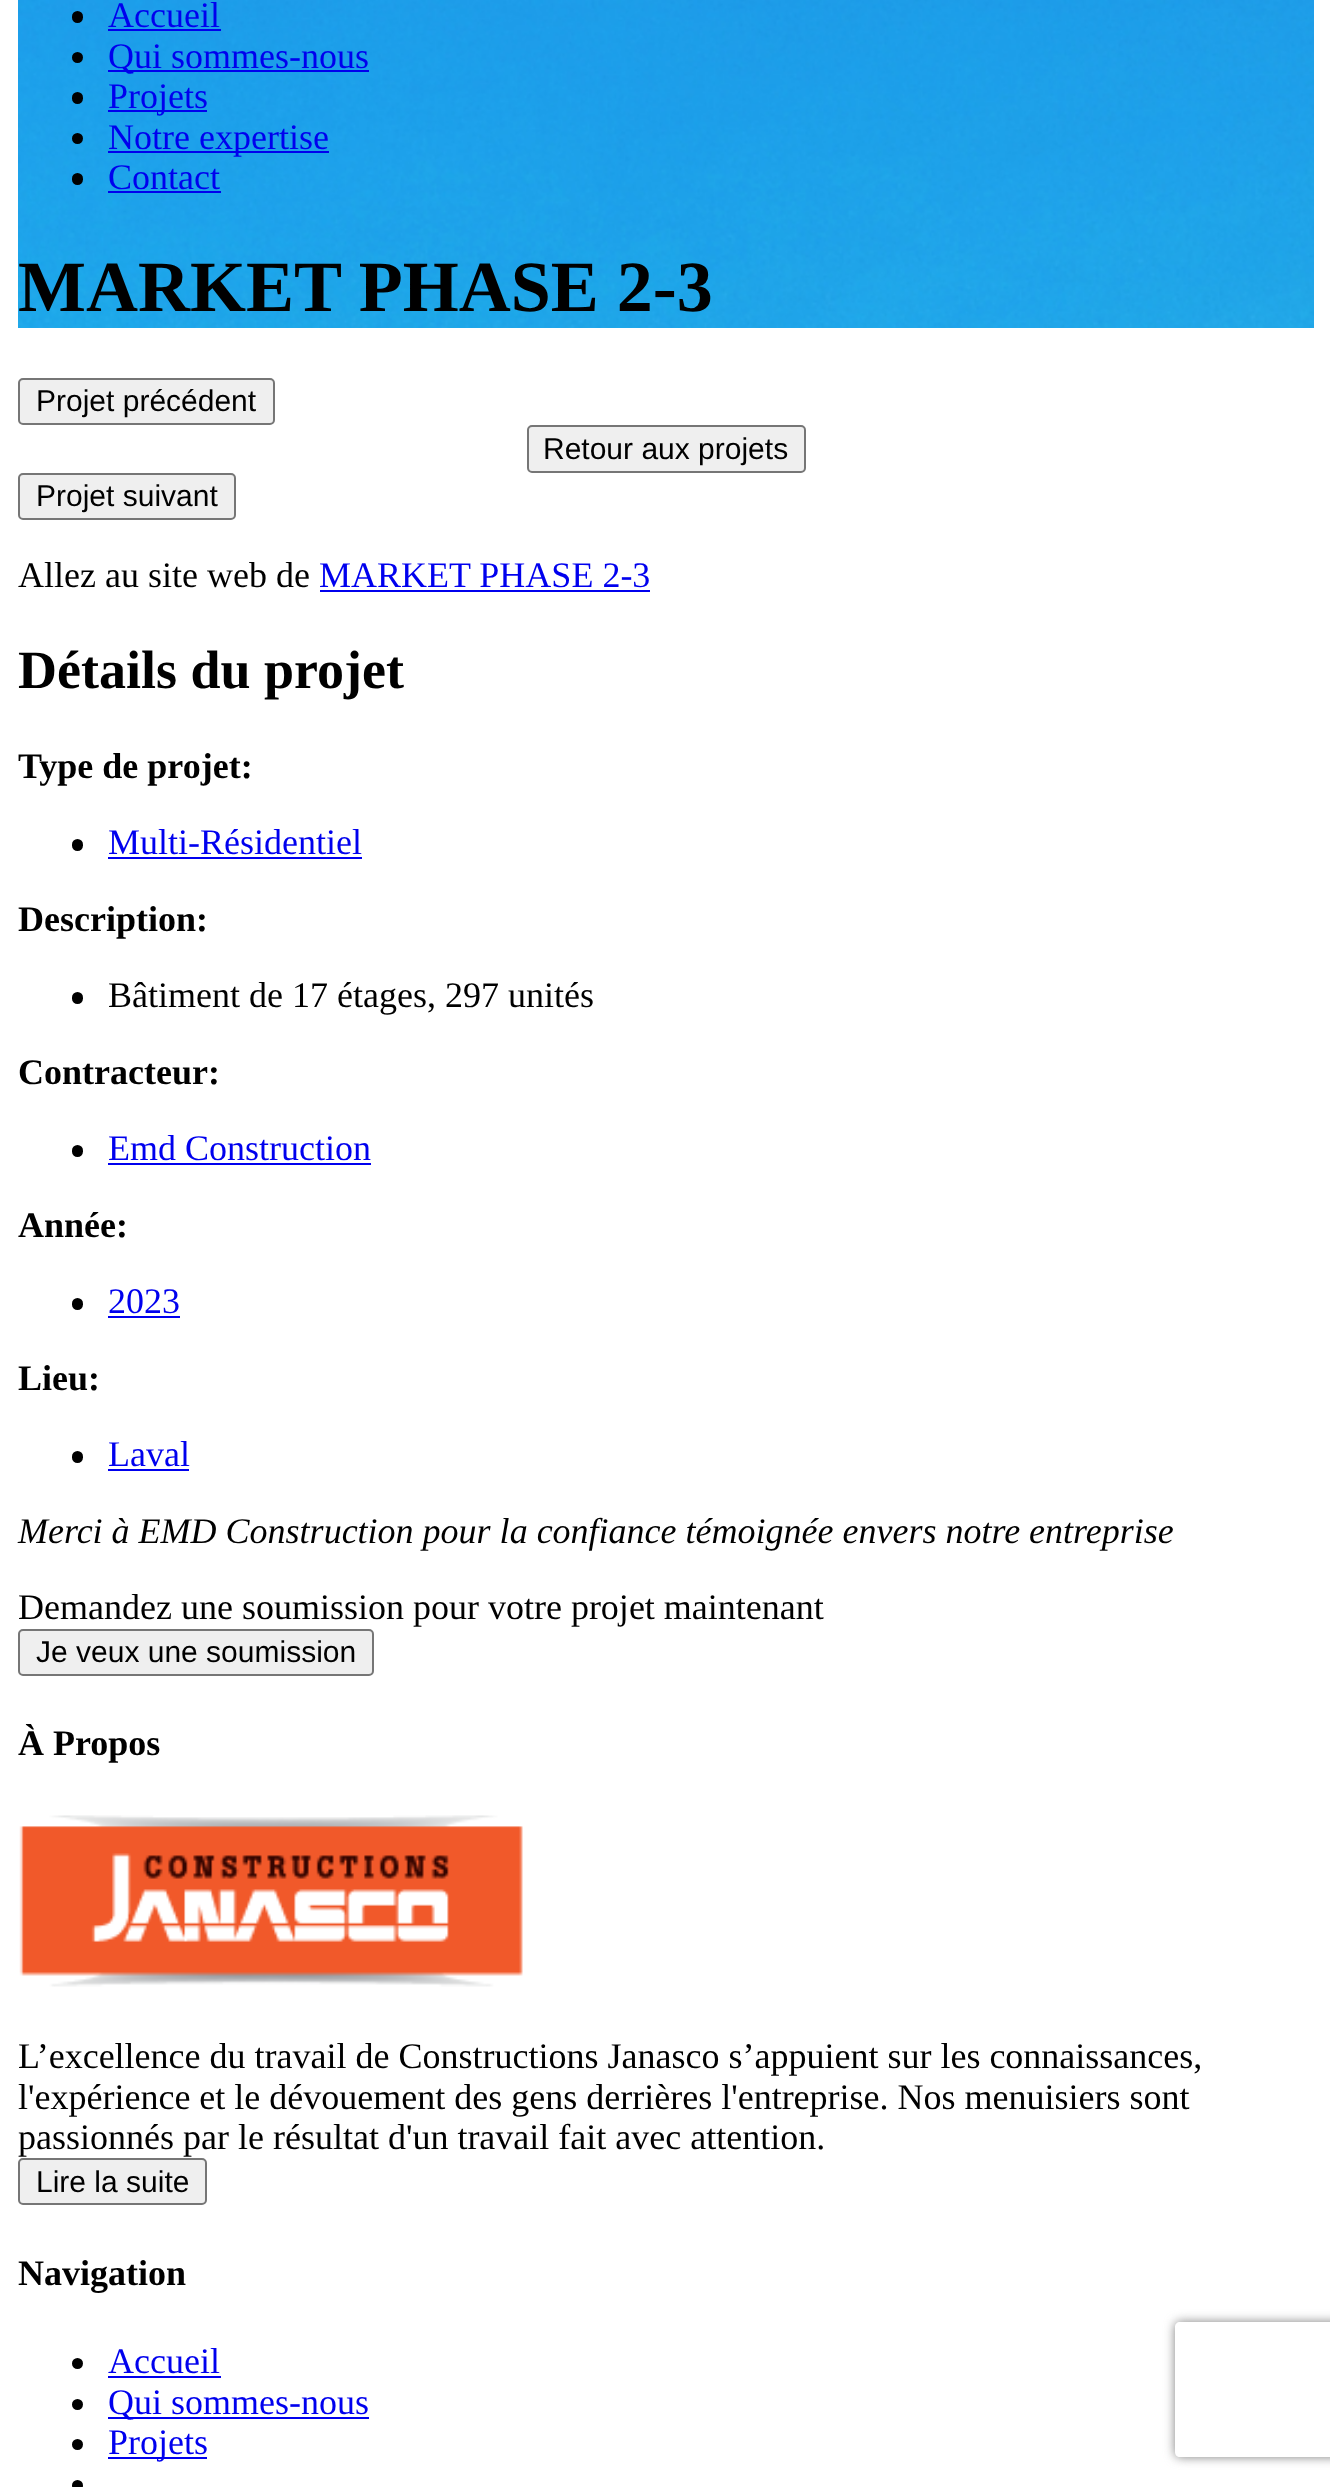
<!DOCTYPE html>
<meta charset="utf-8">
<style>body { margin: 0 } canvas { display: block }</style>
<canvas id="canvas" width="1330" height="2487"></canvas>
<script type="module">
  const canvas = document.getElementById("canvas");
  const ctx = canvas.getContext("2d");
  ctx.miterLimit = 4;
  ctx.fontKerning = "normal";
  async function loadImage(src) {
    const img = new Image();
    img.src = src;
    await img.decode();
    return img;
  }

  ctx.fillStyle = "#ffffff";
  ctx.fillRect(0, 0, 1330, 2487);
  ctx.drawImage(await loadImage("img1.png"), 18, 0, 1296, 328);
  ctx.fillStyle = "#000000";
  ctx.beginPath();
  ctx.roundRect(72, 11, 11, 12, 5.5);
  ctx.fill();
  ctx.font = "36px Liberation Serif";
  ctx.fillStyle = "#0000ee";
  ctx.fillText("Accueil", 108, 27);
  ctx.fillRect(108, 29, 113, 2);
  ctx.fillStyle = "#000000";
  ctx.beginPath();
  ctx.arc(77.5, 57.5, 5.5, 0, Math.PI * 2);
  ctx.fill();
  ctx.fillStyle = "#0000ee";
  ctx.fillRect(108, 70, 261, 2);
  ctx.fillText("Qui sommes-nous", 108, 68);
  ctx.fillStyle = "#000000";
  ctx.beginPath();
  ctx.roundRect(72, 92, 11, 12, 5.5);
  ctx.fill();
  ctx.fillStyle = "#0000ee";
  ctx.fillRect(108, 110, 99, 2);
  ctx.fillText("Projets", 108, 108);
  ctx.fillStyle = "#000000";
  ctx.beginPath();
  ctx.arc(77.5, 138.5, 5.5, 0, Math.PI * 2);
  ctx.fill();
  ctx.fillStyle = "#0000ee";
  ctx.fillRect(108, 151, 221, 2);
  ctx.fillText("Notre expertise", 108, 149);
  ctx.fillStyle = "#000000";
  ctx.beginPath();
  ctx.roundRect(72, 173, 11, 12, 5.5);
  ctx.fill();
  ctx.fillStyle = "#0000ee";
  ctx.fillText("Contact", 108, 189);
  ctx.fillRect(108, 191, 113, 2);
  ctx.font = "bold 72px Liberation Serif";
  ctx.fillStyle = "#000000";
  ctx.fillText("MARKET PHASE 2-3", 18, 311);
  ctx.fillStyle = "#efefef";
  ctx.beginPath();
  ctx.roundRect(19, 379, 255, 45, 4);
  ctx.fill();
  ctx.strokeStyle = "#767676";
  ctx.lineWidth = 2;
  ctx.stroke();
  ctx.font = "30px Liberation Sans";
  ctx.fillStyle = "#000000";
  ctx.fillText("Projet précédent", 36, 411);
  ctx.fillStyle = "#efefef";
  ctx.beginPath();
  ctx.roundRect(528, 426, 277, 46, 4);
  ctx.fill();
  ctx.stroke();
  ctx.fillStyle = "#000000";
  ctx.fillText("Retour aux projets", 543, 459);
  ctx.fillStyle = "#efefef";
  ctx.beginPath();
  ctx.roundRect(19, 474, 216, 45, 4);
  ctx.fill();
  ctx.stroke();
  ctx.fillStyle = "#000000";
  ctx.fillText("Projet suivant", 36, 506);
  ctx.font = "36px Liberation Serif";
  ctx.fillText("Allez au site web de", 18, 587);
  ctx.fillStyle = "#0000ee";
  ctx.fillText("MARKET PHASE 2-3", 319, 587);
  ctx.fillRect(320, 590, 330, 2);
  ctx.font = "bold 54px Liberation Serif";
  ctx.fillStyle = "#000000";
  ctx.fillText("Détails du projet", 18, 688);
  ctx.font = "bold 36px Liberation Serif";
  ctx.fillText("Type de projet:", 18, 778);
  ctx.beginPath();
  ctx.roundRect(72, 839, 11, 12, 5.5);
  ctx.fill();
  ctx.font = "36px Liberation Serif";
  ctx.fillStyle = "#0000ee";
  ctx.fillText("Multi-Résidentiel", 108, 854);
  ctx.fillRect(108, 857, 254, 2);
  ctx.font = "bold 36px Liberation Serif";
  ctx.fillStyle = "#000000";
  ctx.fillText("Description:", 18, 931);
  ctx.beginPath();
  ctx.roundRect(72, 992, 11, 12, 5.5);
  ctx.fill();
  ctx.font = "36px Liberation Serif";
  ctx.fillText("Bâtiment de 17 étages, 297 unités", 108, 1007);
  ctx.font = "bold 36px Liberation Serif";
  ctx.fillText("Contracteur:", 18, 1084);
  ctx.beginPath();
  ctx.roundRect(72, 1145, 11, 12, 5.5);
  ctx.fill();
  ctx.font = "36px Liberation Serif";
  ctx.fillStyle = "#0000ee";
  ctx.fillText("Emd Construction", 108, 1160);
  ctx.fillRect(108, 1163, 263, 2);
  ctx.font = "bold 36px Liberation Serif";
  ctx.fillStyle = "#000000";
  ctx.fillText("Année:", 18, 1237);
  ctx.beginPath();
  ctx.roundRect(72, 1298, 11, 12, 5.5);
  ctx.fill();
  ctx.font = "36px Liberation Serif";
  ctx.fillStyle = "#0000ee";
  ctx.fillText("2023", 108, 1313);
  ctx.fillRect(108, 1316, 72, 2);
  ctx.font = "bold 36px Liberation Serif";
  ctx.fillStyle = "#000000";
  ctx.fillText("Lieu:", 18, 1390);
  ctx.beginPath();
  ctx.roundRect(72, 1451, 11, 12, 5.5);
  ctx.fill();
  ctx.font = "36px Liberation Serif";
  ctx.fillStyle = "#0000ee";
  ctx.fillText("Laval", 108, 1466);
  ctx.fillRect(108, 1469, 81, 2);
  ctx.font = "italic 36px Liberation Serif";
  ctx.fillStyle = "#000000";
  ctx.fillText("Merci à EMD Construction pour la confiance témoignée envers notre entreprise", 18, 1543);
  ctx.font = "36px Liberation Serif";
  ctx.fillText("Demandez une soumission pour votre projet maintenant", 18, 1619);
  ctx.fillStyle = "#efefef";
  ctx.beginPath();
  ctx.roundRect(19, 1630, 354, 45, 4);
  ctx.fill();
  ctx.stroke();
  ctx.font = "30px Liberation Sans";
  ctx.fillStyle = "#000000";
  ctx.fillText("Je veux une soumission", 36, 1662);
  ctx.font = "bold 36px Liberation Serif";
  ctx.fillText("À Propos", 18, 1755);
  ctx.drawImage(await loadImage("img2.png"), 19, 1815, 504, 172);
  ctx.font = "36px Liberation Serif";
  ctx.fillText("L’excellence du travail de Constructions Janasco s’appuient sur les connaissances,", 18, 2068);
  ctx.fillText("l'expérience et le dévouement des gens derrières l'entreprise. Nos menuisiers sont", 18, 2109);
  ctx.fillText("passionnés par le résultat d'un travail fait avec attention.", 18, 2149);
  ctx.fillStyle = "#efefef";
  ctx.beginPath();
  ctx.roundRect(19, 2159, 187, 45, 4);
  ctx.fill();
  ctx.stroke();
  ctx.font = "30px Liberation Sans";
  ctx.fillStyle = "#000000";
  ctx.fillText("Lire la suite", 36, 2192);
  ctx.font = "bold 36px Liberation Serif";
  ctx.fillText("Navigation", 18, 2285);
  ctx.beginPath();
  ctx.arc(77.5, 2363.5, 5.5, 0, Math.PI * 2);
  ctx.fill();
  ctx.font = "36px Liberation Serif";
  ctx.fillStyle = "#0000ee";
  ctx.fillText("Accueil", 108, 2373);
  ctx.fillRect(108, 2376, 113, 2);
  ctx.fillStyle = "#000000";
  ctx.beginPath();
  ctx.arc(77.5, 2404.5, 5.5, 0, Math.PI * 2);
  ctx.fill();
  ctx.fillStyle = "#0000ee";
  ctx.fillRect(108, 2417, 261, 2);
  ctx.fillText("Qui sommes-nous", 108, 2414);
  ctx.fillStyle = "#000000";
  ctx.beginPath();
  ctx.arc(77.5, 2444.5, 5.5, 0, Math.PI * 2);
  ctx.fill();
  ctx.fillStyle = "#0000ee";
  ctx.fillRect(108, 2457, 99, 2);
  ctx.fillText("Projets", 108, 2454);
  ctx.fillStyle = "#000000";
  ctx.beginPath();
  ctx.arc(77.5, 2485.5, 5.5, 0, Math.PI * 2);
  ctx.fill();
  ctx.save();
  ctx.beginPath();
  ctx.moveTo(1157, 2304);
  ctx.lineTo(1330, 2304);
  ctx.lineTo(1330, 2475);
  ctx.lineTo(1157, 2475);
  ctx.closePath();
  ctx.moveTo(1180, 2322);
  ctx.lineTo(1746, 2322);
  ctx.bezierCurveTo(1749, 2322, 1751, 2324, 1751, 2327);
  ctx.lineTo(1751, 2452);
  ctx.bezierCurveTo(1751, 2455, 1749, 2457, 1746, 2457);
  ctx.lineTo(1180, 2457);
  ctx.bezierCurveTo(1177, 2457, 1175, 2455, 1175, 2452);
  ctx.lineTo(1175, 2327);
  ctx.bezierCurveTo(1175, 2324, 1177, 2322, 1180, 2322);
  ctx.closePath();
  ctx.clip("evenodd");
  ctx.fillStyle = "#808080";
  ctx.filter = "blur(5.5px)";
  ctx.beginPath();
  ctx.roundRect(1175, 2322, 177, 135, 5);
  ctx.fill();
  ctx.filter = "none";
  ctx.restore();
</script>
